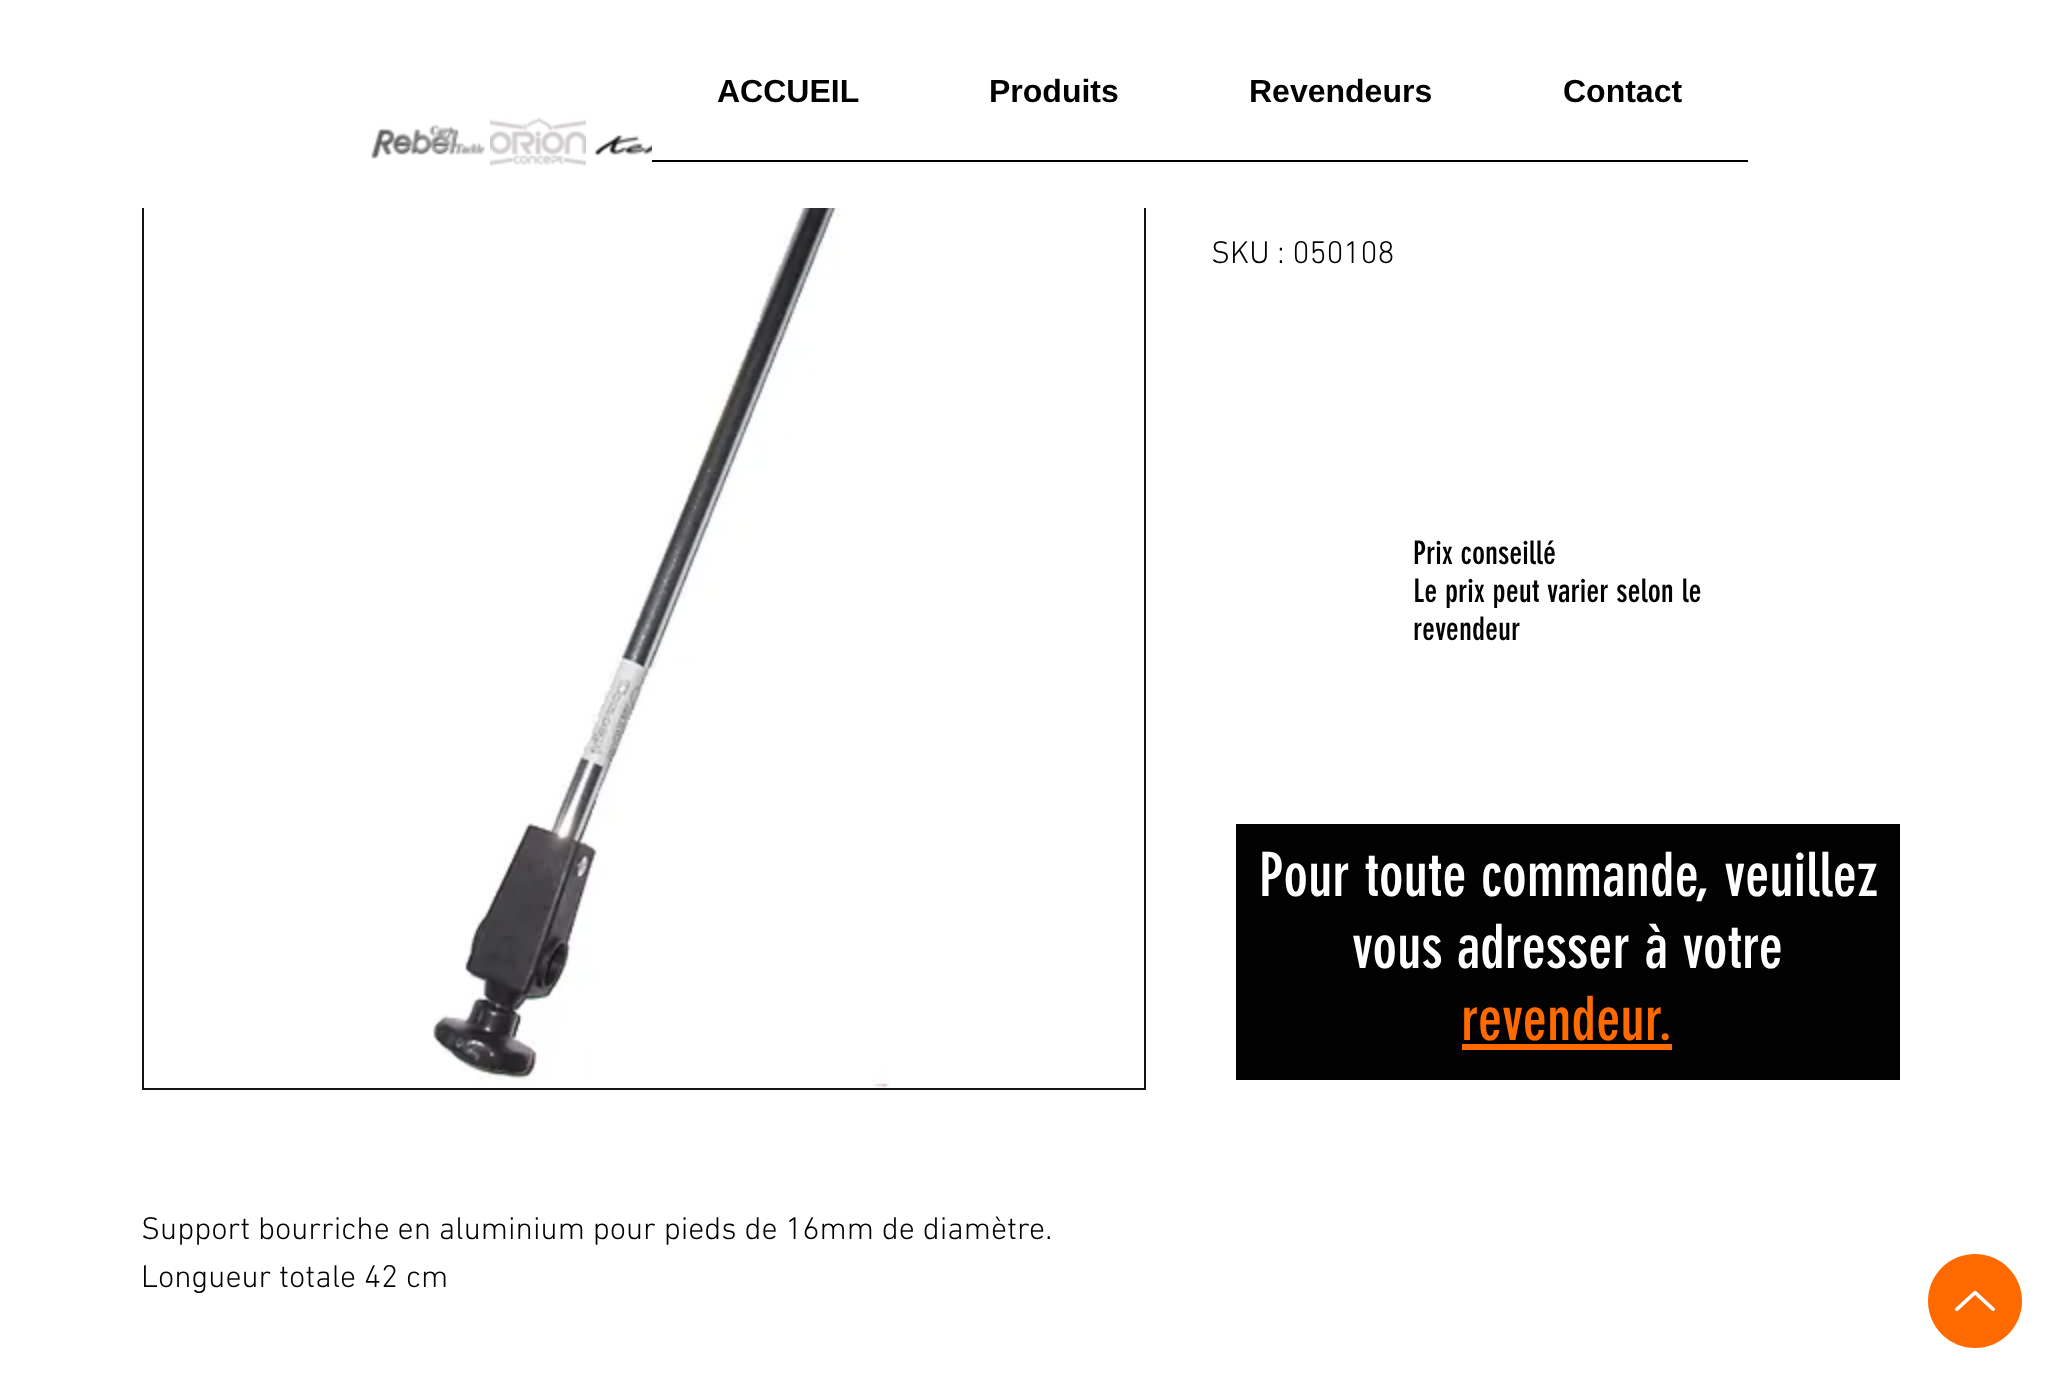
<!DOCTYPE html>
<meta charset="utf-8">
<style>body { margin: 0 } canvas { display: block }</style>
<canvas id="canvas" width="2061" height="1387"></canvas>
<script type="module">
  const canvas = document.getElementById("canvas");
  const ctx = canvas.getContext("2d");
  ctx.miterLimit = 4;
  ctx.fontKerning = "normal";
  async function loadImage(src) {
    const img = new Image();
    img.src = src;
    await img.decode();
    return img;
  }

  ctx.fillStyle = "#ffffff";
  ctx.fillRect(0, 0, 2061, 1387);
  ctx.strokeStyle = "#141414";
  ctx.lineWidth = 2;
  ctx.strokeRect(143, 87, 1002, 1002);
  ctx.fillRect(142, 86, 1004, 122);
  ctx.drawImage(await loadImage("img1.png"), 371, 124, 114, 35);
  ctx.drawImage(await loadImage("img2.png"), 490, 118, 96, 48);
  ctx.drawImage(await loadImage("img3.png"), 594, 135, 58, 22);
  ctx.font = "bold 32px Liberation Sans";
  ctx.fillStyle = "#020202";
  ctx.fillText("ACCUEIL", 717, 102);
  ctx.fillText("Produits", 989, 102);
  ctx.fillText("Revendeurs", 1249, 102);
  ctx.fillText("Contact", 1563, 102);
  ctx.fillStyle = "#000000";
  ctx.fillRect(652, 160, 1096, 2);
  ctx.font = "300 32px 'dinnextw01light'";
  ctx.fillStyle = "#020202";
  ctx.fillText("SKU : 050108", 1211, 263);
  ctx.drawImage(await loadImage("img4.png"), 432, 208, 457, 880);
  ctx.fillText("Support bourriche en aluminium pour pieds de 16mm de diamètre.", 141, 1239);
  ctx.fillText("Longueur totale 42 cm", 141, 1287);
  ctx.font = "32px 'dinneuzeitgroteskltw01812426'";
  ctx.fillText("Prix conseillé", 1413, 564);
  ctx.fillText("Le prix peut varier selon le", 1413, 602);
  ctx.fillText("revendeur", 1413, 640);
  ctx.fillRect(1236, 824, 664, 256);
  ctx.font = "60px 'dinneuzeitgroteskltw01812426'";
  ctx.fillStyle = "#ffffff";
  ctx.fillText("Pour toute commande, veuillez", 1259, 896);
  ctx.fillText("vous adresser à votre", 1352, 968);
  ctx.fillStyle = "#ff6a00";
  ctx.fillText("revendeur.", 1461, 1040);
  ctx.fillRect(1462, 1044, 210, 6);
  ctx.beginPath();
  ctx.arc(1975, 1301, 47, 0, Math.PI * 2);
  ctx.fill();
  ctx.drawImage(await loadImage("img5.png"), 1955, 1290, 40, 22);
</script>
